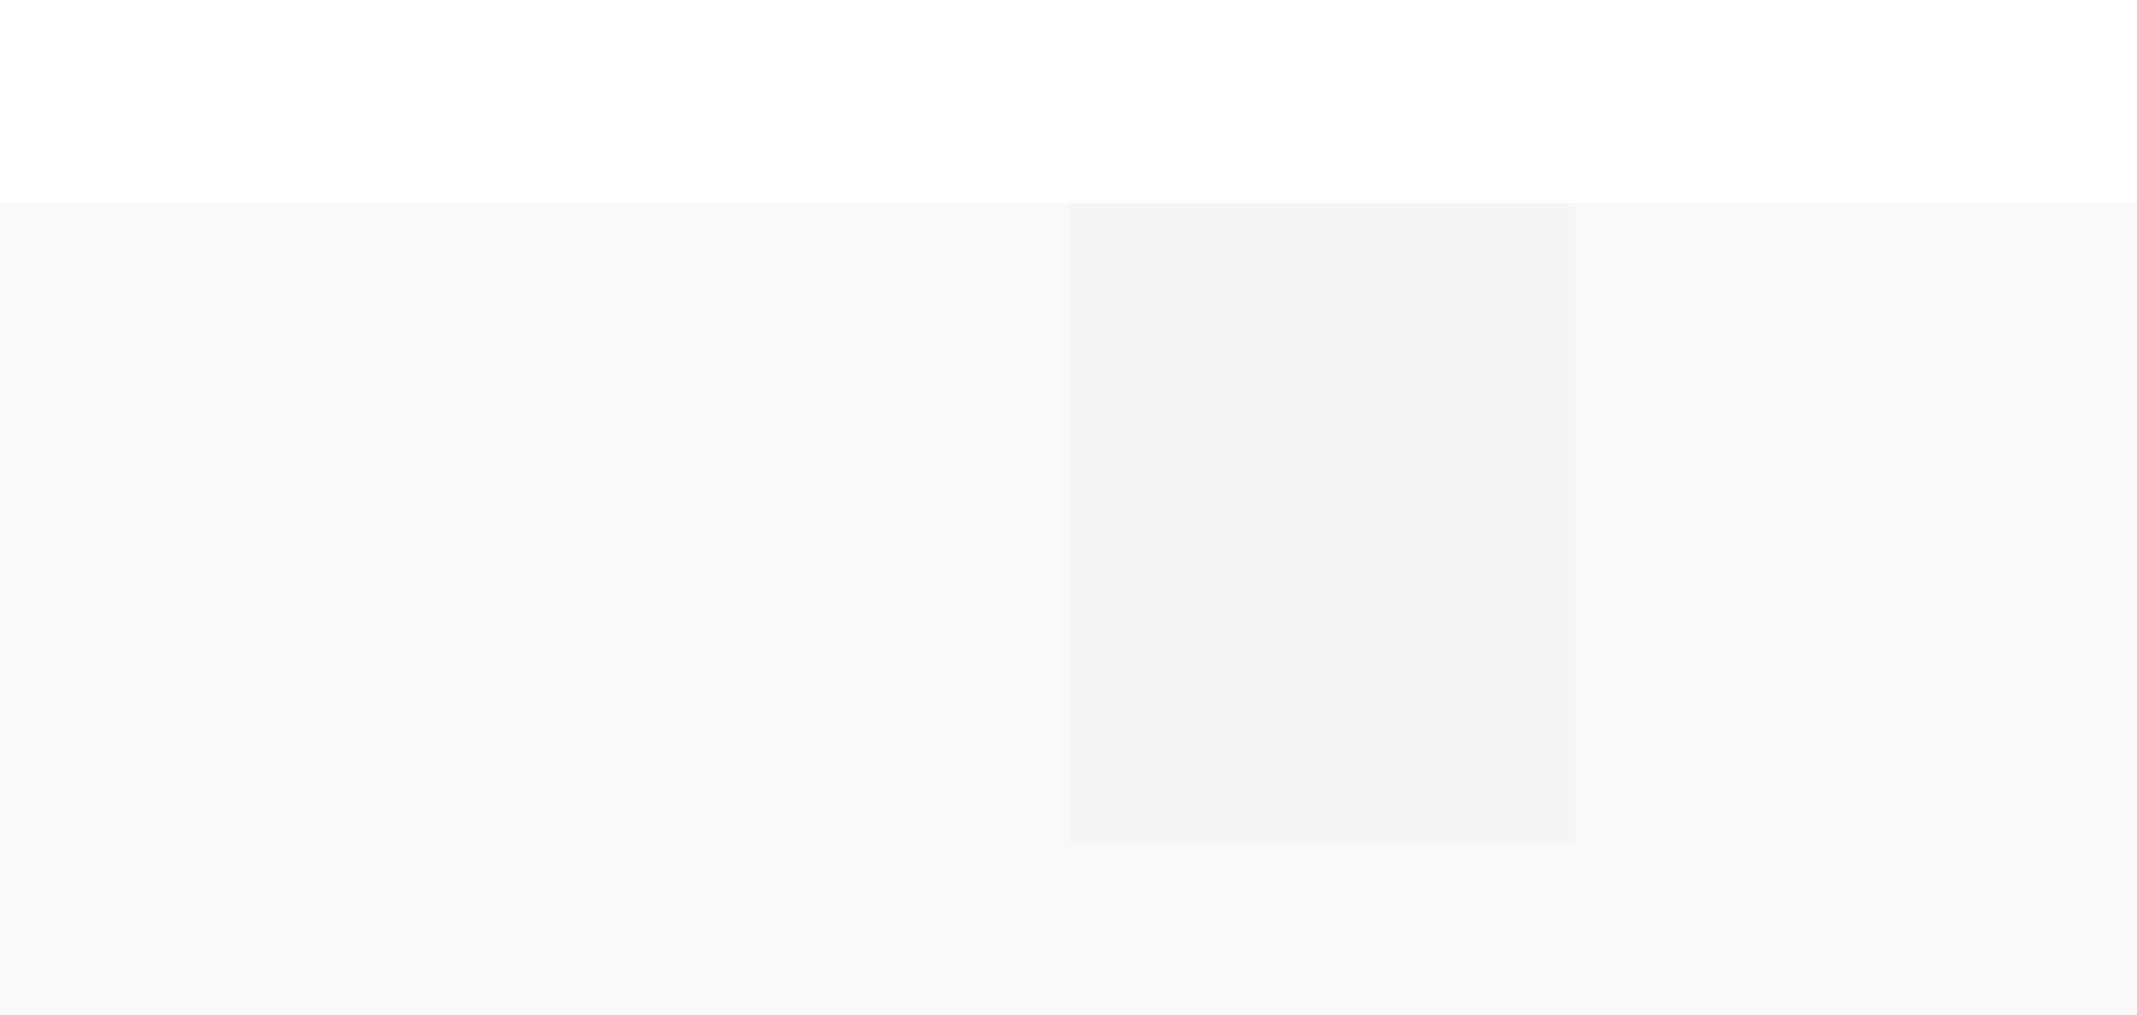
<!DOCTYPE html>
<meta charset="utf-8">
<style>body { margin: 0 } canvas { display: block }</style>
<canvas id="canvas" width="2137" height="1015"></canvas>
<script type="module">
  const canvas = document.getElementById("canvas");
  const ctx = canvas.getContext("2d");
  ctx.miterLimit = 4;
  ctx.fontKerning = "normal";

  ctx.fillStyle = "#f9f9f9";
  ctx.fillRect(0, 0, 2137, 1015);
  ctx.fillStyle = "#ffffff";
  ctx.fillRect(0, 0, 2137, 203);
  ctx.fillStyle = "#f5f5f5";
  ctx.fillRect(1069, 203, 506, 640);
</script>
